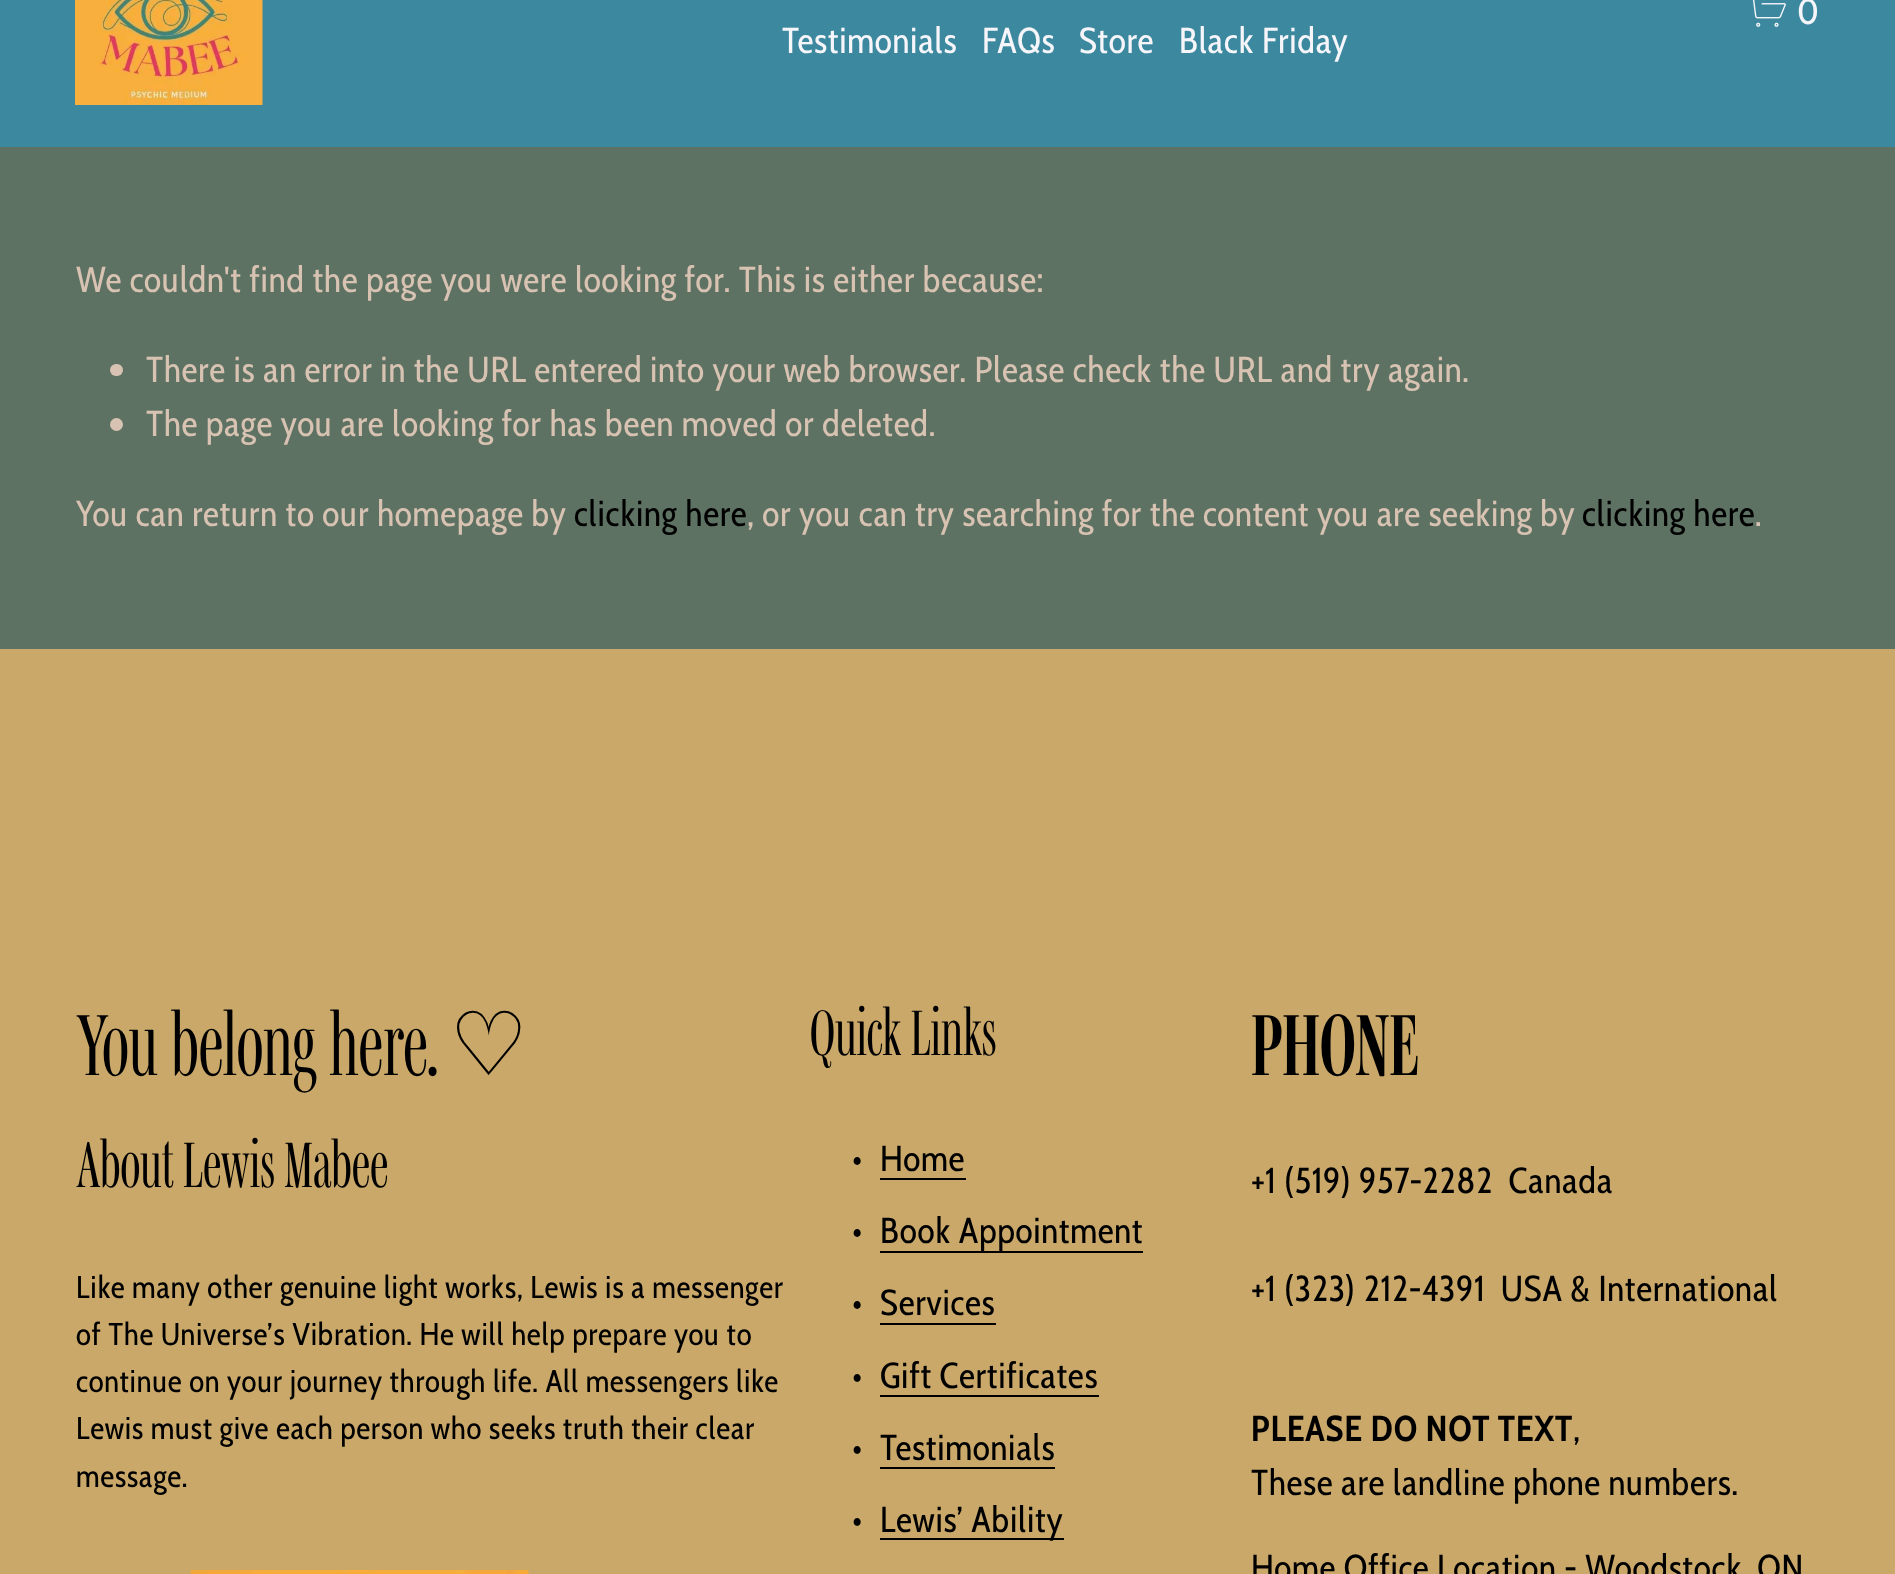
<!DOCTYPE html>
<meta charset="utf-8">
<style>body { margin: 0 } canvas { display: block }</style>
<canvas id="canvas" width="1895" height="1574"></canvas>
<script type="module">
  const canvas = document.getElementById("canvas");
  const ctx = canvas.getContext("2d");
  ctx.miterLimit = 4;
  ctx.fontKerning = "normal";
  async function loadImage(src) {
    const img = new Image();
    img.src = src;
    await img.decode();
    return img;
  }

  ctx.fillStyle = "#5e7263";
  ctx.fillRect(0, 0, 1895, 1574);
  ctx.fillStyle = "#3c899f";
  ctx.fillRect(0, 0, 1895, 147);
  ctx.drawImage(await loadImage("img1.png"), 1752, 0, 34, 27);
  ctx.letterSpacing = "0.72px";
  ctx.font = "36.05px Cabin Condensed";
  ctx.fillStyle = "#f6f5fa";
  ctx.fillText("0", 1797, 24);
  ctx.drawImage(await loadImage("img2.png"), 75, 0, 188, 105);
  ctx.fillText("Testimonials", 782, 53);
  ctx.fillText("FAQs", 982, 53);
  ctx.fillText("Store", 1079, 53);
  ctx.fillText("Black Friday", 1179, 53);
  ctx.fillStyle = "#d8c3b3";
  ctx.fillText("We couldn't find the page you were looking for. This is either because:", 76, 292);
  ctx.beginPath();
  ctx.roundRect(110, 364, 13, 12, 6);
  ctx.fill();
  ctx.fillText("There is an error in the URL entered into your web browser. Please check the URL and try again.", 146, 382);
  ctx.beginPath();
  ctx.arc(116.5, 424.5, 6.5, 0, Math.PI * 2);
  ctx.fill();
  ctx.fillText("The page you are looking for has been moved or deleted.", 146, 436);
  ctx.fillText("You can return to our homepage by", 76, 526);
  ctx.fillStyle = "#000000";
  ctx.fillText("clicking here", 574, 526);
  ctx.fillStyle = "#d8c3b3";
  ctx.fillText(", or you can try searching for the", 747, 526);
  ctx.fillText("content you are seeking by", 1203, 526);
  ctx.fillStyle = "#000000";
  ctx.fillText("clicking here", 1582, 526);
  ctx.fillStyle = "#d8c3b3";
  ctx.fillText(".", 1755, 526);
  ctx.fillStyle = "#c9a86a";
  ctx.fillRect(0, 649, 1895, 925);
  ctx.letterSpacing = "0px";
  ctx.font = "88.5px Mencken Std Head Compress";
  ctx.fillStyle = "#000000";
  ctx.fillText("You belong here.", 76, 1075);
  ctx.font = "88.5px DejaVu Sans";
  ctx.fillText("♡", 449, 1075);
  ctx.font = "65.5px Mencken Std Head Compress";
  ctx.fillText("Quick Links", 810, 1055);
  ctx.letterSpacing = "0.72px";
  ctx.font = "36.05px Cabin Condensed";
  ctx.fillText("•", 852, 1171);
  ctx.fillText("Home", 880, 1171);
  ctx.fillRect(880, 1178, 86, 2);
  ctx.fillText("•", 852, 1243);
  ctx.fillRect(880, 1251, 263, 2);
  ctx.fillText("Book Appointment", 880, 1243);
  ctx.fillText("•", 852, 1315);
  ctx.fillText("Services", 880, 1315);
  ctx.fillRect(880, 1323, 116, 2);
  ctx.fillText("•", 852, 1388);
  ctx.fillText("Gift Certificates", 880, 1388);
  ctx.fillRect(880, 1395, 219, 2);
  ctx.fillText("•", 852, 1460);
  ctx.fillText("Testimonials", 880, 1460);
  ctx.fillRect(880, 1467, 175, 2);
  ctx.fillText("•", 852, 1532);
  ctx.fillRect(880, 1538, 184, 2);
  ctx.fillText("Lewis’ Ability", 880, 1532);
  ctx.letterSpacing = "0px";
  ctx.font = "bold 88.5px Mencken Std Head Compress";
  ctx.fillText("PHONE", 1251, 1075);
  ctx.letterSpacing = "0.72px";
  ctx.font = "36.05px Cabin Condensed";
  ctx.fillText("+1 (519) 957-2282  Canada", 1251, 1193);
  ctx.fillText("+1 (323) 212-4391  USA & International", 1251, 1301);
  ctx.font = "bold 36.05px Cabin Condensed";
  ctx.fillText("PLEASE DO NOT TEXT", 1251, 1441);
  ctx.font = "36.05px Cabin Condensed";
  ctx.fillText(",", 1573, 1441);
  ctx.fillText("These are landline phone numbers.", 1251, 1495);
  ctx.fillText("Home Office Location - Woodstock, ON", 1251, 1580);
  ctx.letterSpacing = "0px";
  ctx.font = "65.5px Mencken Std Head Compress";
  ctx.fillText("About Lewis Mabee", 76, 1187);
  ctx.letterSpacing = "0.72px";
  ctx.font = "31.5px Cabin Condensed";
  ctx.fillText("Like many other genuine light works, Lewis is a messenger", 76, 1298);
  ctx.fillText("of The Universe’s Vibration. He will help prepare you to", 76, 1345);
  ctx.fillText("continue on your journey through life. All messengers like", 76, 1392);
  ctx.fillText("Lewis must give each person who seeks truth their clear", 76, 1439);
  ctx.fillText("message.", 76, 1487);
  ctx.drawImage(await loadImage("img3.png"), 190, 1570, 339, 4);
</script>
